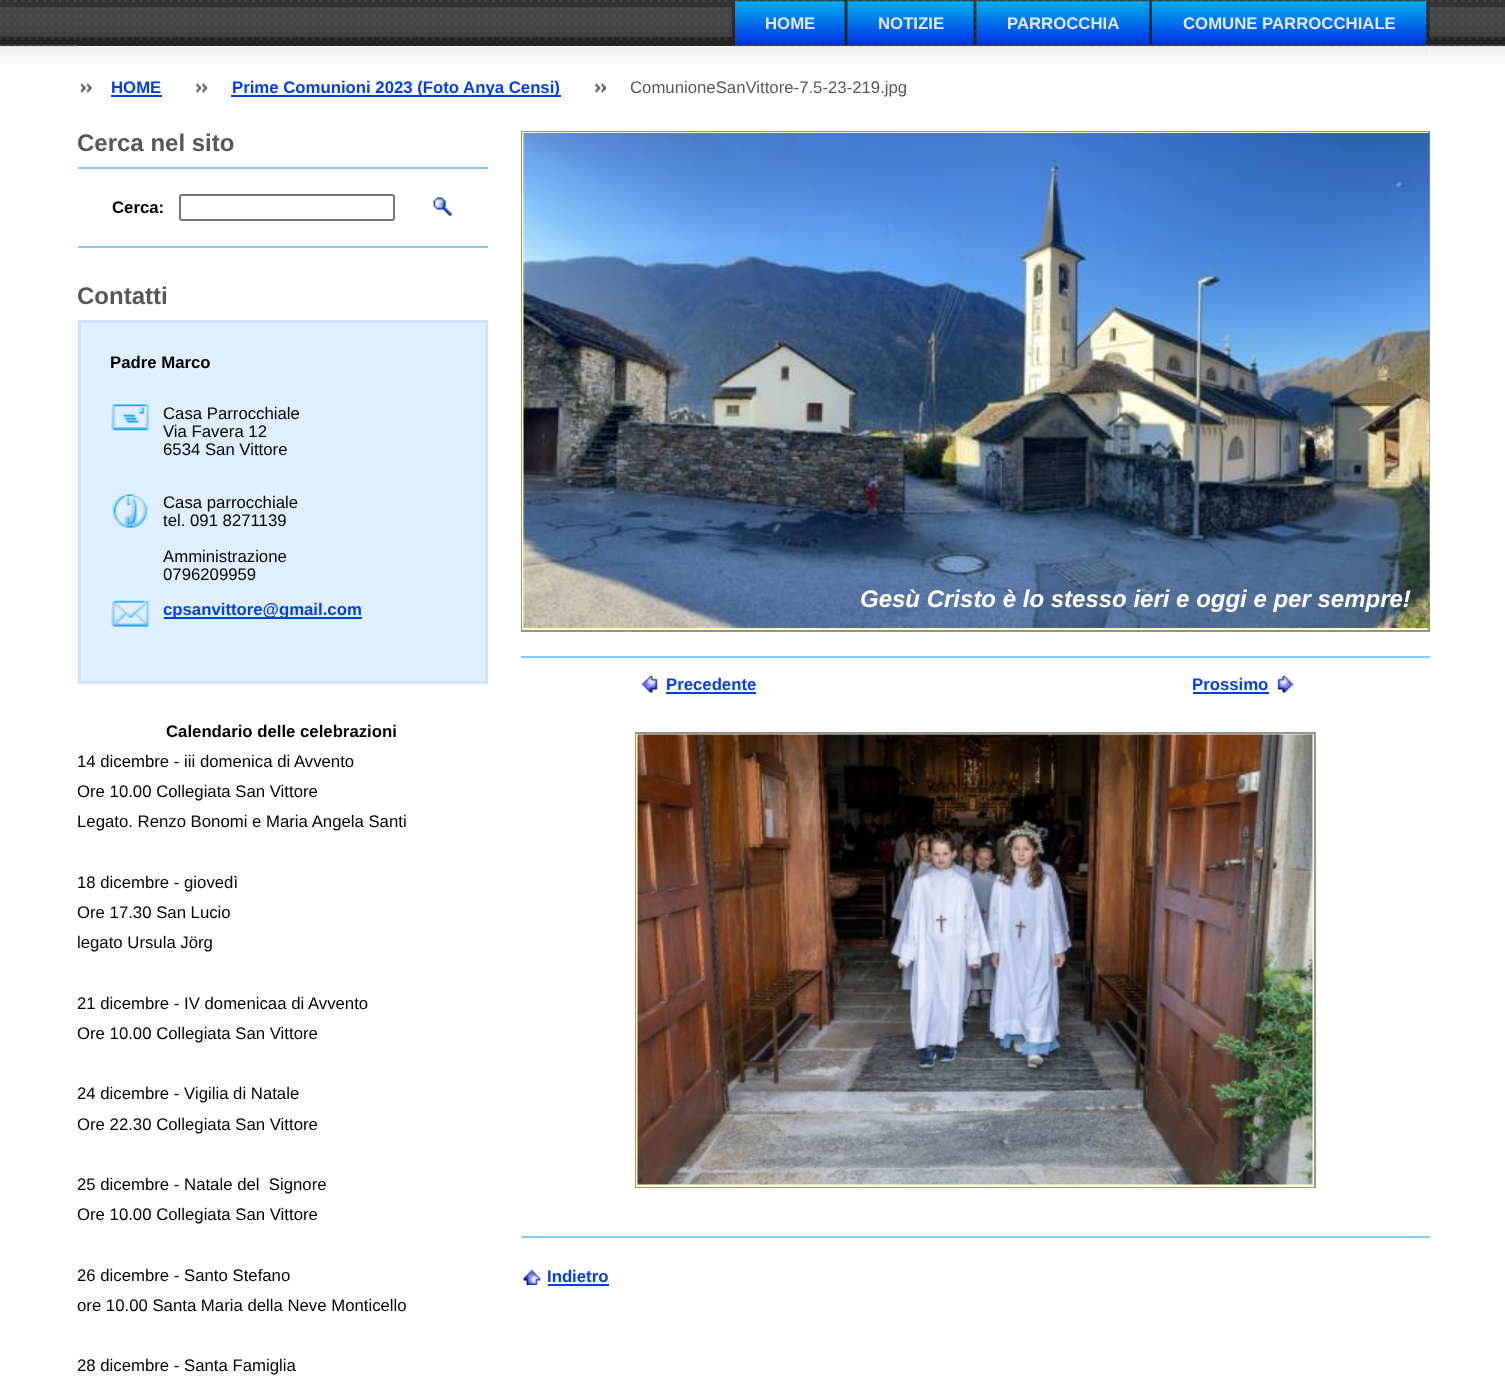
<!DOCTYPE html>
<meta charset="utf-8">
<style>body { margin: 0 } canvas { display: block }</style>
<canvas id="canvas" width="1505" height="1380"></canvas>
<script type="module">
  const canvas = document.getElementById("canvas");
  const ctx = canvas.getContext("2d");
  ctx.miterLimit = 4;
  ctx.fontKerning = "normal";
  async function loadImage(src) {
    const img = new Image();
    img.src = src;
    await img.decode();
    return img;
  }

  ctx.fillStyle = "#ffffff";
  ctx.fillRect(0, 0, 1505, 1380);
  ctx.drawImage(await loadImage("img1.png"), 0, 0, 1505, 64);
  ctx.drawImage(await loadImage("img2.png"), 78, 0, 1352, 46);
  ctx.fillRect(78, 47, 1352, 17);
  ctx.drawImage(await loadImage("img8.png"), 78, 46, 1352, 18);
  ctx.drawImage(await loadImage("img3.png"), 732, 0, 698, 48);
  ctx.drawImage(await loadImage("img4.png"), 735, 0, 110, 45);
  ctx.font = "bold 16.75px Liberation Sans";
  ctx.fillStyle = "#e6e8fa";
  ctx.fillText("HOME", 765, 29);
  ctx.drawImage(await loadImage("img5.png"), 847, 0, 127, 45);
  ctx.fillText("NOTIZIE", 878, 29);
  ctx.drawImage(await loadImage("img6.png"), 976, 0, 173, 45);
  ctx.fillText("PARROCCHIA", 1007, 29);
  ctx.drawImage(await loadImage("img7.png"), 1152, 0, 275, 45);
  ctx.fillText("COMUNE PARROCCHIALE", 1183, 29);
  ctx.drawImage(await loadImage("img9.png"), 80, 83, 12, 10);
  ctx.fillStyle = "#003ee8";
  ctx.fillText("HOME", 111, 93);
  ctx.fillRect(111, 95, 51, 2);
  ctx.drawImage(await loadImage("img10.png"), 196, 83, 11, 10);
  ctx.fillRect(231, 95, 330, 2);
  ctx.fillText("Prime Comunioni 2023 (Foto Anya Censi)", 232, 93);
  ctx.drawImage(await loadImage("img11.png"), 595, 83, 11, 10);
  ctx.font = "16.75px Liberation Sans";
  ctx.fillStyle = "#575757";
  ctx.fillText("ComunioneSanVittore-7.5-23-219.jpg", 630, 93);
  ctx.font = "bold 24px Liberation Sans";
  ctx.fillText("Cerca nel sito", 77, 151);
  ctx.fillStyle = "#83caf4";
  ctx.fillRect(78, 167, 410, 2);
  ctx.fillRect(78, 246, 410, 2);
  ctx.font = "bold 16.75px Liberation Sans";
  ctx.fillStyle = "#000000";
  ctx.fillText("Cerca:", 112, 213);
  ctx.beginPath();
  ctx.roundRect(180, 195, 214, 25, 2);
  ctx.strokeStyle = "#767676";
  ctx.lineWidth = 2;
  ctx.stroke();
  ctx.drawImage(await loadImage("img12.png"), 433, 197, 19, 19);
  ctx.font = "bold 24px Liberation Sans";
  ctx.fillStyle = "#575757";
  ctx.fillText("Contatti", 77, 304);
  ctx.fillStyle = "#e0effe";
  ctx.beginPath();
  ctx.rect(79.5, 321.5, 407, 361);
  ctx.fill();
  ctx.strokeStyle = "#cce4fd";
  ctx.lineWidth = 3;
  ctx.stroke();
  ctx.font = "bold 16.75px Liberation Sans";
  ctx.fillStyle = "#000000";
  ctx.fillText("Padre Marco", 110, 368);
  ctx.drawImage(await loadImage("img13.png"), 111, 404, 38, 27);
  ctx.font = "16.75px Liberation Sans";
  ctx.fillText("Casa Parrocchiale", 163, 419);
  ctx.fillText("Via Favera 12", 163, 437);
  ctx.fillText("6534 San Vittore", 163, 455);
  ctx.drawImage(await loadImage("img14.png"), 112, 494, 36, 34);
  ctx.fillText("Casa parrocchiale", 163, 508);
  ctx.fillText("tel. 091 8271139", 163, 526);
  ctx.fillText("Amministrazione", 163, 562);
  ctx.fillText("0796209959", 163, 580);
  ctx.drawImage(await loadImage("img15.png"), 111, 600, 38, 27);
  ctx.fillStyle = "#003ee8";
  ctx.fillRect(164, 617, 198, 2);
  ctx.font = "bold 16.75px Liberation Sans";
  ctx.fillText("cpsanvittore@gmail.com", 163, 615);
  ctx.fillStyle = "#000000";
  ctx.fillText("Calendario delle celebrazioni", 166, 737);
  ctx.font = "16.75px Liberation Sans";
  ctx.fillText("14 dicembre - iii domenica di Avvento", 77, 767);
  ctx.fillText("Ore 10.00 Collegiata San Vittore", 77, 797);
  ctx.fillText("Legato. Renzo Bonomi e Maria Angela Santi", 77, 827);
  ctx.fillText("18 dicembre - giovedì", 77, 888);
  ctx.fillText("Ore 17.30 San Lucio", 77, 918);
  ctx.fillText("legato Ursula Jörg", 77, 948);
  ctx.fillText("21 dicembre - IV domenicaa di Avvento", 77, 1009);
  ctx.fillText("Ore 10.00 Collegiata San Vittore", 77, 1039);
  ctx.fillText("24 dicembre - Vigilia di Natale", 77, 1099);
  ctx.fillText("Ore 22.30 Collegiata San Vittore", 77, 1130);
  ctx.fillText("25 dicembre - Natale del  Signore", 77, 1190);
  ctx.fillText("Ore 10.00 Collegiata San Vittore", 77, 1220);
  ctx.fillText("26 dicembre - Santo Stefano", 77, 1281);
  ctx.fillText("ore 10.00 Santa Maria della Neve Monticello", 77, 1311);
  ctx.fillText("28 dicembre - Santa Famiglia", 77, 1371);
  ctx.strokeStyle = "#939393";
  ctx.lineWidth = 2;
  ctx.strokeRect(522, 132, 907, 499);
  ctx.strokeStyle = "#ffffbe";
  ctx.strokeRect(523, 133, 904, 496);
  ctx.drawImage(await loadImage("img16.png"), 523, 133, 907, 495);
  ctx.font = "italic bold 24px Liberation Sans";
  ctx.fillStyle = "#ffffff";
  ctx.fillText("Gesù Cristo è lo stesso ieri e oggi e per sempre!", 860, 607);
  ctx.fillStyle = "#83caf4";
  ctx.fillRect(521, 656, 909, 2);
  ctx.fillRect(521, 1236, 909, 2);
  ctx.drawImage(await loadImage("img17.png"), 641, 675, 17, 18);
  ctx.font = "bold 16.75px Liberation Sans";
  ctx.fillStyle = "#003ee8";
  ctx.fillText("Precedente", 666, 690);
  ctx.fillRect(666, 692, 90, 2);
  ctx.fillText("Prossimo", 1192, 690);
  ctx.fillRect(1193, 692, 76, 2);
  ctx.drawImage(await loadImage("img18.png"), 1277, 675, 17, 18);
  ctx.strokeStyle = "#949496";
  ctx.strokeRect(636, 733, 679, 454);
  ctx.strokeStyle = "#ffffbe";
  ctx.strokeRect(637, 735, 676, 451);
  ctx.drawImage(await loadImage("img19.png"), 637, 734, 676, 451);
  ctx.drawImage(await loadImage("img20.png"), 523, 1269, 18, 16);
  ctx.fillText("Indietro", 547, 1282);
  ctx.fillRect(548, 1284, 61, 2);
</script>
